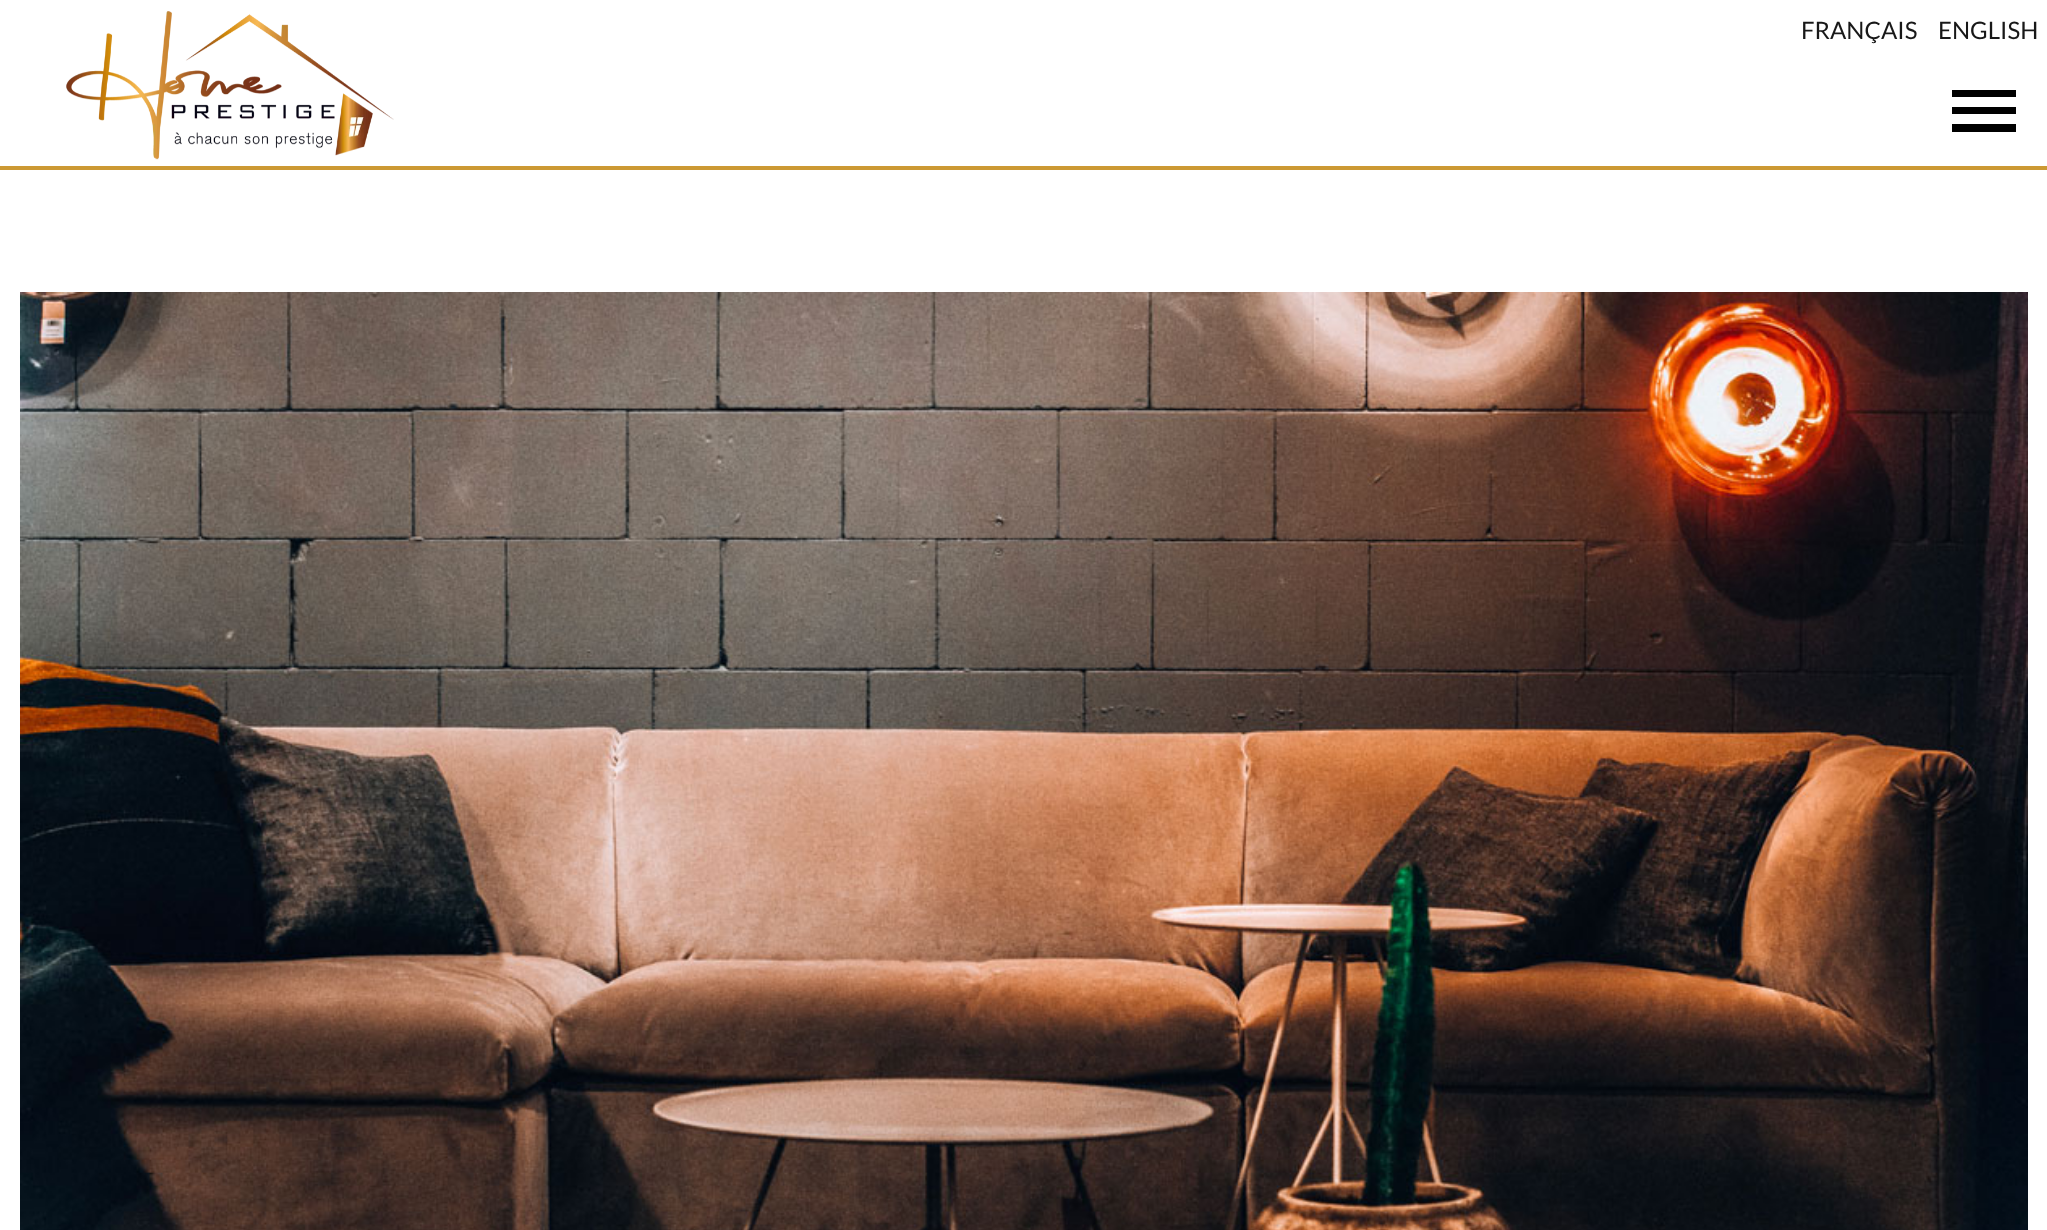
<!DOCTYPE html>
<meta charset="utf-8">
<style>body { margin: 0 } canvas { display: block }</style>
<canvas id="canvas" width="2047" height="1230"></canvas>
<script type="module">
  const canvas = document.getElementById("canvas");
  const ctx = canvas.getContext("2d");
  ctx.miterLimit = 4;
  ctx.fontKerning = "normal";
  async function loadImage(src) {
    const img = new Image();
    img.src = src;
    await img.decode();
    return img;
  }

  ctx.fillStyle = "#ffffff";
  ctx.fillRect(0, 0, 2047, 1230);
  ctx.fillStyle = "#cc9933";
  ctx.fillRect(0, 166, 2047, 4);
  ctx.drawImage(await loadImage("img1.png"), 66, 11, 328, 149);
  ctx.font = "24px Lato";
  ctx.fillStyle = "#181818";
  ctx.fillText("FRANÇAIS", 1801, 39);
  ctx.fillText("ENGLISH", 1938, 39);
  ctx.fillStyle = "#000000";
  ctx.beginPath();
  ctx.moveTo(1952, 90);
  ctx.lineTo(2016, 90);
  ctx.lineTo(2016, 97);
  ctx.lineTo(1952, 97);
  ctx.closePath();
  ctx.moveTo(1952, 107);
  ctx.lineTo(2016, 107);
  ctx.lineTo(2016, 114);
  ctx.lineTo(1952, 114);
  ctx.closePath();
  ctx.moveTo(1952, 124);
  ctx.lineTo(2016, 124);
  ctx.lineTo(2016, 132);
  ctx.lineTo(1952, 132);
  ctx.closePath();
  ctx.fill();
  ctx.drawImage(await loadImage("img2.png"), 20, 292, 2008, 938);
</script>
